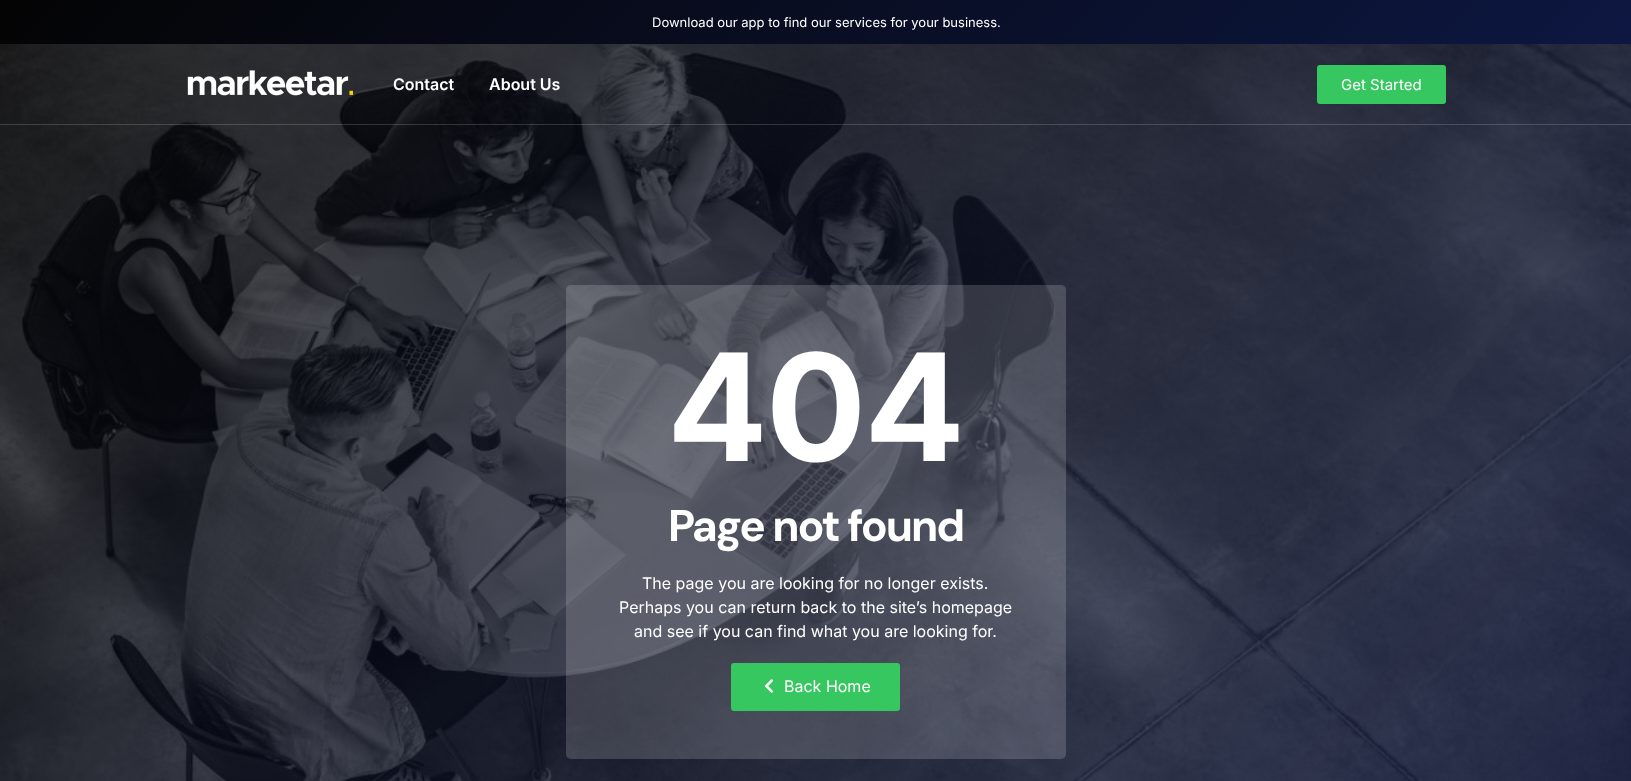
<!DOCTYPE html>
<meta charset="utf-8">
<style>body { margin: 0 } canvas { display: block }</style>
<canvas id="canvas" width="1631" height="781"></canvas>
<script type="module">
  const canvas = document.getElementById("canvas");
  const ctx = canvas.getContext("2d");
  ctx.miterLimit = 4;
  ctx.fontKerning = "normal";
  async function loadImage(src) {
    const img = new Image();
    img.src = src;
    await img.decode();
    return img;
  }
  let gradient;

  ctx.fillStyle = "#ffffff";
  ctx.fillRect(0, 0, 1631, 781);
  gradient = ctx.createLinearGradient(397, -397, 1234, 441);
  gradient.addColorStop(0, "#040404");
  gradient.addColorStop(1, "#0d1741");
  ctx.fillStyle = gradient;
  ctx.fillRect(0, 0, 1631, 44);
  ctx.font = "13px Inter";
  ctx.fillStyle = "#ffffff";
  ctx.fillText("Download our app to find our services for your business.", 652, 27);
  gradient = ctx.createLinearGradient(181, -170, 1450, 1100);
  gradient.addColorStop(0, "#040404");
  gradient.addColorStop(1, "#0d1741");
  ctx.fillStyle = gradient;
  ctx.fillRect(0, 44, 1631, 737);
  ctx.drawImage(await loadImage("img2.png"), 0, 44, 1631, 737);
  ctx.fillStyle = "rgba(255, 255, 255, 0.17)";
  ctx.fillRect(0, 124, 1631, 1);
  ctx.drawImage(await loadImage("img1.png"), 187, 70, 166, 26);
  ctx.font = "600 16px Inter";
  ctx.fillStyle = "#ffffff";
  ctx.fillText("Contact", 393, 90);
  ctx.fillText("About Us", 489, 90);
  ctx.fillStyle = "#37c760";
  ctx.beginPath();
  ctx.roundRect(1317, 65, 129, 39, 3);
  ctx.fill();
  ctx.font = "15px Inter";
  ctx.fillStyle = "#ffffff";
  ctx.fillText("Get Started", 1341, 90);
  ctx.fillStyle = "rgba(255, 255, 255, 0.17)";
  ctx.beginPath();
  ctx.roundRect(566, 285, 500, 474, 5);
  ctx.fill();
  ctx.letterSpacing = "-2px";
  ctx.font = "bold 149px Inter";
  ctx.fillStyle = "#ffffff";
  ctx.fillText("404", 667, 461);
  ctx.font = "bold 44.25px DM Sans";
  ctx.fillText("Page not found", 668, 541);
  ctx.letterSpacing = "0px";
  ctx.font = "16px Inter";
  ctx.fillText("The page you are looking for no longer exists.", 642, 589);
  ctx.fillText("Perhaps you can return back to the site’s homepage", 619, 613);
  ctx.fillText("and see if you can find what you are looking for.", 634, 637);
  ctx.fillStyle = "#37c760";
  ctx.beginPath();
  ctx.roundRect(731, 663, 169, 48, 3);
  ctx.fill();
  ctx.drawImage(await loadImage("img3.png"), 764, 679, 10, 14);
  ctx.fillStyle = "#ffffff";
  ctx.fillText("Back Home", 784, 692);
</script>
